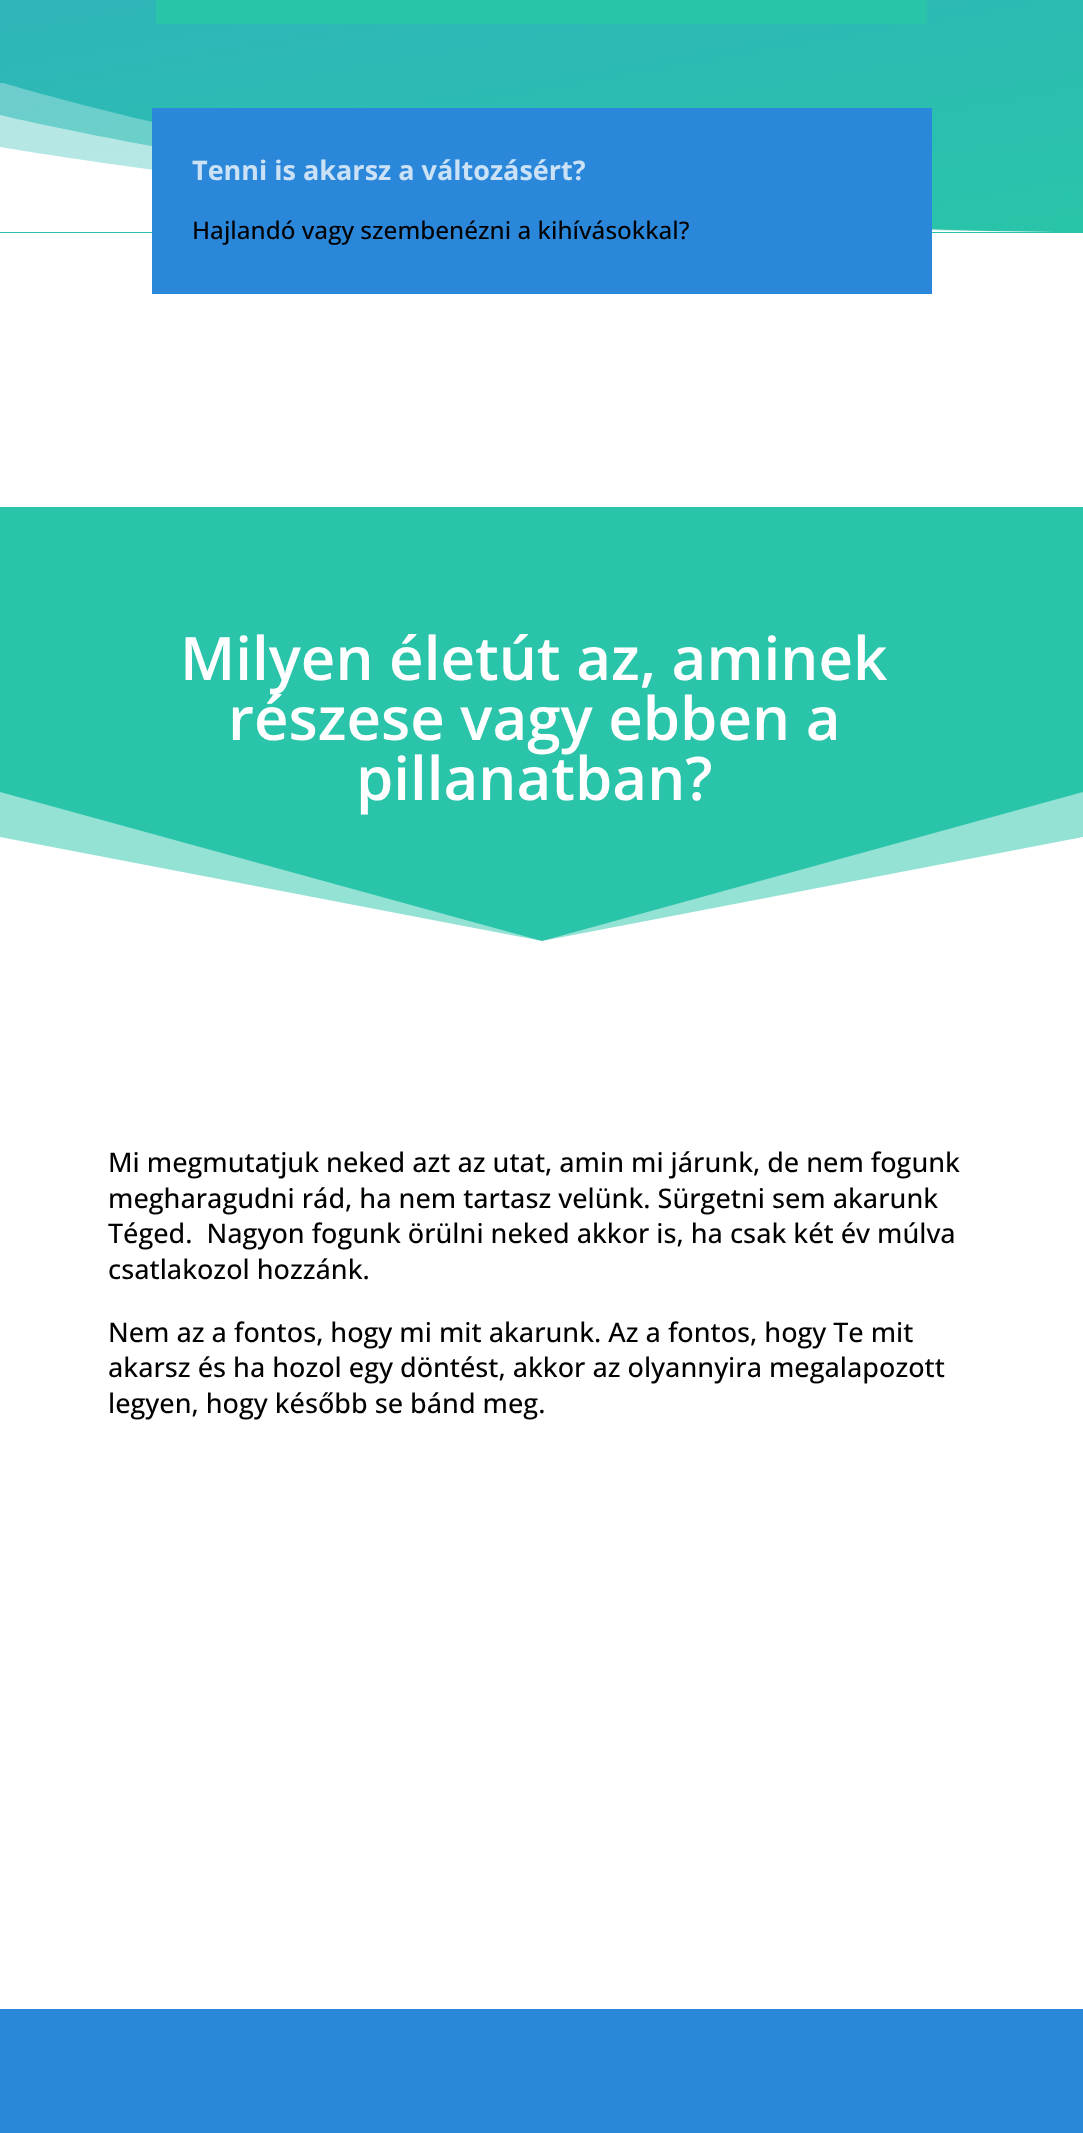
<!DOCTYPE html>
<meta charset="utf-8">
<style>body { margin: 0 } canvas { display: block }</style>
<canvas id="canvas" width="1083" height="2133"></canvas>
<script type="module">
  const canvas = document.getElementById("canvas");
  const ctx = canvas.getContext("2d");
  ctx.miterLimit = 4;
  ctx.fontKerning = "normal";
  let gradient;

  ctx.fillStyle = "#ffffff";
  ctx.fillRect(0, 0, 1083, 2133);
  gradient = ctx.createLinearGradient(422, -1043, 661, 307);
  gradient.addColorStop(0.01, "#3b93e1");
  gradient.addColorStop(1, "#29c4a9");
  ctx.fillStyle = gradient;
  ctx.fillRect(0, 0, 1083, 233);
  ctx.save();
  ctx.beginPath();
  ctx.rect(0, 83, 1083, 150);
  ctx.clip();
  ctx.fillStyle = "rgba(255, 255, 255, 0.3)";
  ctx.beginPath();
  ctx.moveTo(0, 232);
  ctx.lineTo(1083, 232);
  ctx.bezierCurveTo(485, 232, 0, 82, 0, 82);
  ctx.closePath();
  ctx.fill();
  ctx.restore();
  ctx.fillStyle = "rgba(255, 255, 255, 0.5)";
  ctx.beginPath();
  ctx.moveTo(0, 232);
  ctx.lineTo(1083, 232);
  ctx.bezierCurveTo(485, 232, 0, 115, 0, 115);
  ctx.closePath();
  ctx.fill();
  ctx.fillStyle = "#ffffff";
  ctx.beginPath();
  ctx.moveTo(0, 232);
  ctx.lineTo(1083, 232);
  ctx.bezierCurveTo(485, 232, 0, 147, 0, 147);
  ctx.closePath();
  ctx.fill();
  ctx.fillStyle = "#29c4a9";
  ctx.fillRect(156, 0, 771, 24);
  ctx.fillStyle = "#2b87da";
  ctx.fillRect(152, 108, 780, 186);
  ctx.font = "bold 27px Open Sans";
  ctx.fillStyle = "#cae1f6";
  ctx.fillText("Tenni is akarsz a változásért?", 192, 180);
  ctx.font = "500 24.3px Open Sans";
  ctx.fillStyle = "#000000";
  ctx.fillText("Hajlandó vagy szembenézni a kihívásokkal?", 192, 239);
  ctx.fillStyle = "#29c4a9";
  ctx.fillRect(0, 507, 1083, 434);
  ctx.font = "600 60px Open Sans";
  ctx.fillStyle = "#ffffff";
  ctx.fillText("Milyen életút az, aminek", 180, 680);
  ctx.fillText("részese vagy ebben a", 228, 740);
  ctx.fillText("pillanatban?", 356, 800);
  ctx.fillStyle = "#94e2d4";
  ctx.beginPath();
  ctx.moveTo(542, 941);
  ctx.lineTo(0, 792);
  ctx.lineTo(0, 942);
  ctx.lineTo(1083, 942);
  ctx.lineTo(1083, 792);
  ctx.closePath();
  ctx.fill();
  ctx.fillStyle = "#ffffff";
  ctx.beginPath();
  ctx.moveTo(542, 941);
  ctx.lineTo(0, 837);
  ctx.lineTo(0, 942);
  ctx.lineTo(1083, 942);
  ctx.lineTo(1083, 837);
  ctx.closePath();
  ctx.fill();
  ctx.font = "500 27px Open Sans";
  ctx.fillStyle = "#000000";
  ctx.fillText("Mi megmutatjuk neked azt az utat, amin mi járunk, de nem fogunk", 108, 1172);
  ctx.fillText("megharagudni rád, ha nem tartasz velünk. Sürgetni sem akarunk", 108, 1208);
  ctx.fillText("Téged.  Nagyon fogunk örülni neked akkor is, ha csak két év múlva", 108, 1243);
  ctx.fillText("csatlakozol hozzánk.", 108, 1279);
  ctx.fillText("Nem az a fontos, hogy mi mit akarunk. Az a fontos, hogy Te mit", 108, 1342);
  ctx.fillText("akarsz és ha hozol egy döntést, akkor az olyannyira megalapozott", 108, 1377);
  ctx.fillText("legyen, hogy később se bánd meg.", 108, 1413);
  ctx.fillStyle = "#2b87da";
  ctx.fillRect(0, 2009, 1083, 124);
</script>
